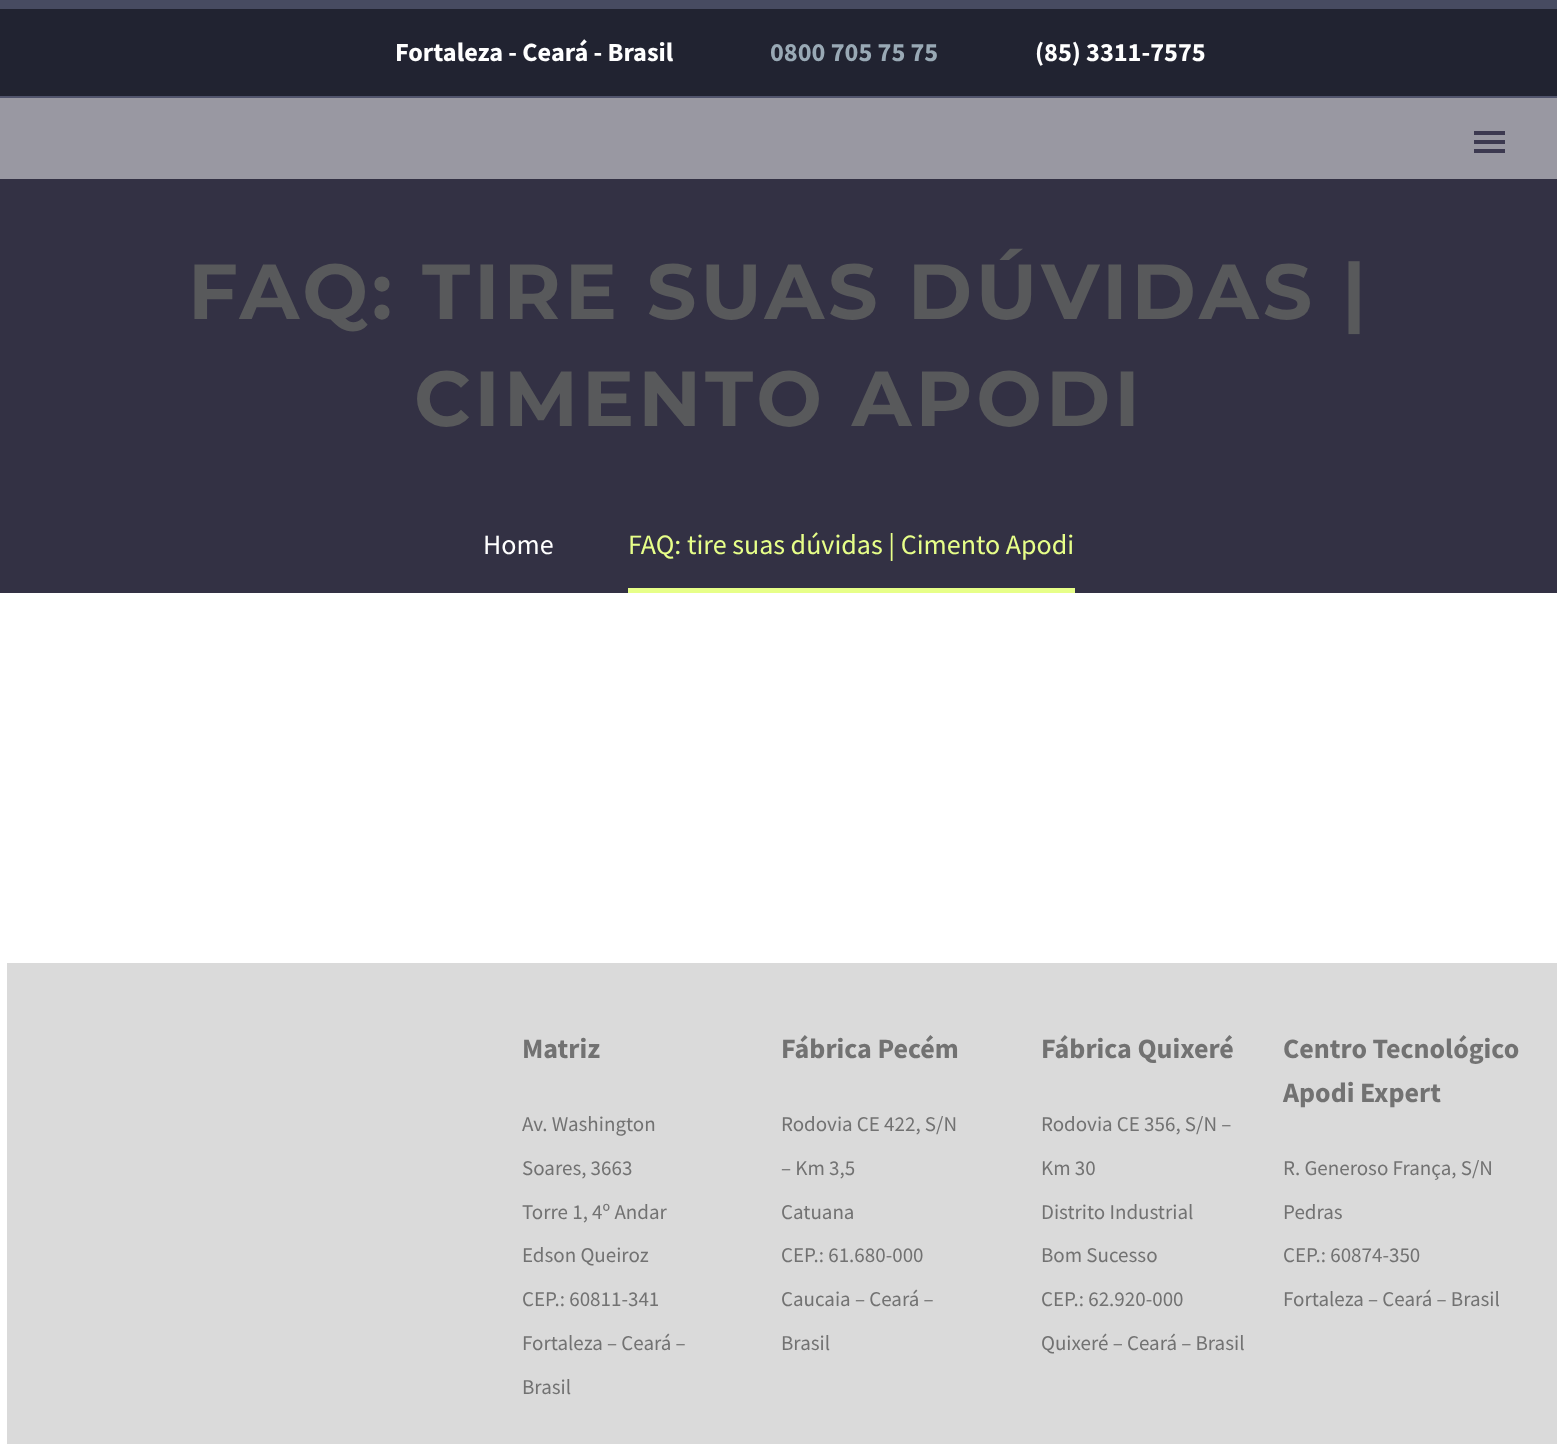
<!DOCTYPE html>
<meta charset="utf-8">
<style>body { margin: 0 } canvas { display: block }</style>
<canvas id="canvas" width="1557" height="1444"></canvas>
<script type="module">
  const canvas = document.getElementById("canvas");
  const ctx = canvas.getContext("2d");
  ctx.miterLimit = 4;
  ctx.fontKerning = "normal";

  ctx.fillStyle = "#ffffff";
  ctx.fillRect(0, 0, 1557, 1444);
  ctx.fillStyle = "#212331";
  ctx.fillRect(0, 9, 1557, 87);
  ctx.fillStyle = "#474b61";
  ctx.fillRect(0, 0, 1557, 9);
  ctx.fillStyle = "#51546c";
  ctx.fillRect(0, 96, 1557, 2);
  ctx.font = "bold 26.25px Source Sans Pro";
  ctx.fillStyle = "#ffffff";
  ctx.fillText("Fortaleza - Ceará - Brasil", 395, 61);
  ctx.fillStyle = "#99a9b5";
  ctx.fillText("0800 705 75 75", 770, 61);
  ctx.fillStyle = "#ffffff";
  ctx.fillText("(85) 3311-7575", 1035, 61);
  ctx.fillStyle = "#9998a2";
  ctx.fillRect(0, 98, 1557, 81);
  ctx.fillStyle = "#3c3950";
  ctx.fillRect(1474, 131, 31, 4);
  ctx.fillRect(1474, 140, 31, 4);
  ctx.fillRect(1474, 149, 31, 4);
  ctx.fillStyle = "#333144";
  ctx.fillRect(0, 179, 1557, 414);
  ctx.letterSpacing = "3.9px";
  ctx.font = "bold 77.9px Montserrat";
  ctx.fillStyle = "#58595b";
  ctx.fillText("FAQ: TIRE SUAS DÚVIDAS |", 188, 319);
  ctx.fillText("CIMENTO APODI", 414, 426);
  ctx.letterSpacing = "0px";
  ctx.font = "28px Source Sans Pro";
  ctx.fillStyle = "#ffffff";
  ctx.fillText("Home", 483, 554);
  ctx.fillStyle = "#e7ff89";
  ctx.fillRect(628, 588, 447, 5);
  ctx.fillText("FAQ: tire suas dúvidas | Cimento Apodi", 628, 554);
  ctx.fillStyle = "#dadada";
  ctx.fillRect(7, 963, 1550, 481);
  ctx.font = "bold 28px Source Sans Pro";
  ctx.fillStyle = "#727272";
  ctx.fillText("Matriz", 522, 1058);
  ctx.font = "21px Source Sans Pro";
  ctx.fillText("Av. Washington", 522, 1131);
  ctx.fillText("Soares, 3663", 522, 1175);
  ctx.fillText("Torre 1, 4º Andar", 522, 1219);
  ctx.fillText("Edson Queiroz", 522, 1262);
  ctx.fillText("CEP.: 60811-341", 522, 1306);
  ctx.fillText("Fortaleza – Ceará –", 522, 1350);
  ctx.fillText("Brasil", 522, 1394);
  ctx.font = "bold 28px Source Sans Pro";
  ctx.fillText("Fábrica Pecém", 781, 1058);
  ctx.font = "21px Source Sans Pro";
  ctx.fillText("Rodovia CE 422, S/N", 781, 1131);
  ctx.fillText("– Km 3,5", 781, 1175);
  ctx.fillText("Catuana", 781, 1219);
  ctx.fillText("CEP.: 61.680-000", 781, 1262);
  ctx.fillText("Caucaia – Ceará –", 781, 1306);
  ctx.fillText("Brasil", 781, 1350);
  ctx.font = "bold 28px Source Sans Pro";
  ctx.fillText("Fábrica Quixeré", 1041, 1058);
  ctx.font = "21px Source Sans Pro";
  ctx.fillText("Rodovia CE 356, S/N –", 1041, 1131);
  ctx.fillText("Km 30", 1041, 1175);
  ctx.fillText("Distrito Industrial", 1041, 1219);
  ctx.fillText("Bom Sucesso", 1041, 1262);
  ctx.fillText("CEP.: 62.920-000", 1041, 1306);
  ctx.fillText("Quixeré – Ceará – Brasil", 1041, 1350);
  ctx.font = "bold 28px Source Sans Pro";
  ctx.fillText("Centro Tecnológico", 1283, 1058);
  ctx.fillText("Apodi Expert", 1283, 1102);
  ctx.font = "21px Source Sans Pro";
  ctx.fillText("R. Generoso França, S/N", 1283, 1175);
  ctx.fillText("Pedras", 1283, 1219);
  ctx.fillText("CEP.: 60874-350", 1283, 1262);
  ctx.fillText("Fortaleza – Ceará – Brasil", 1283, 1306);
</script>
